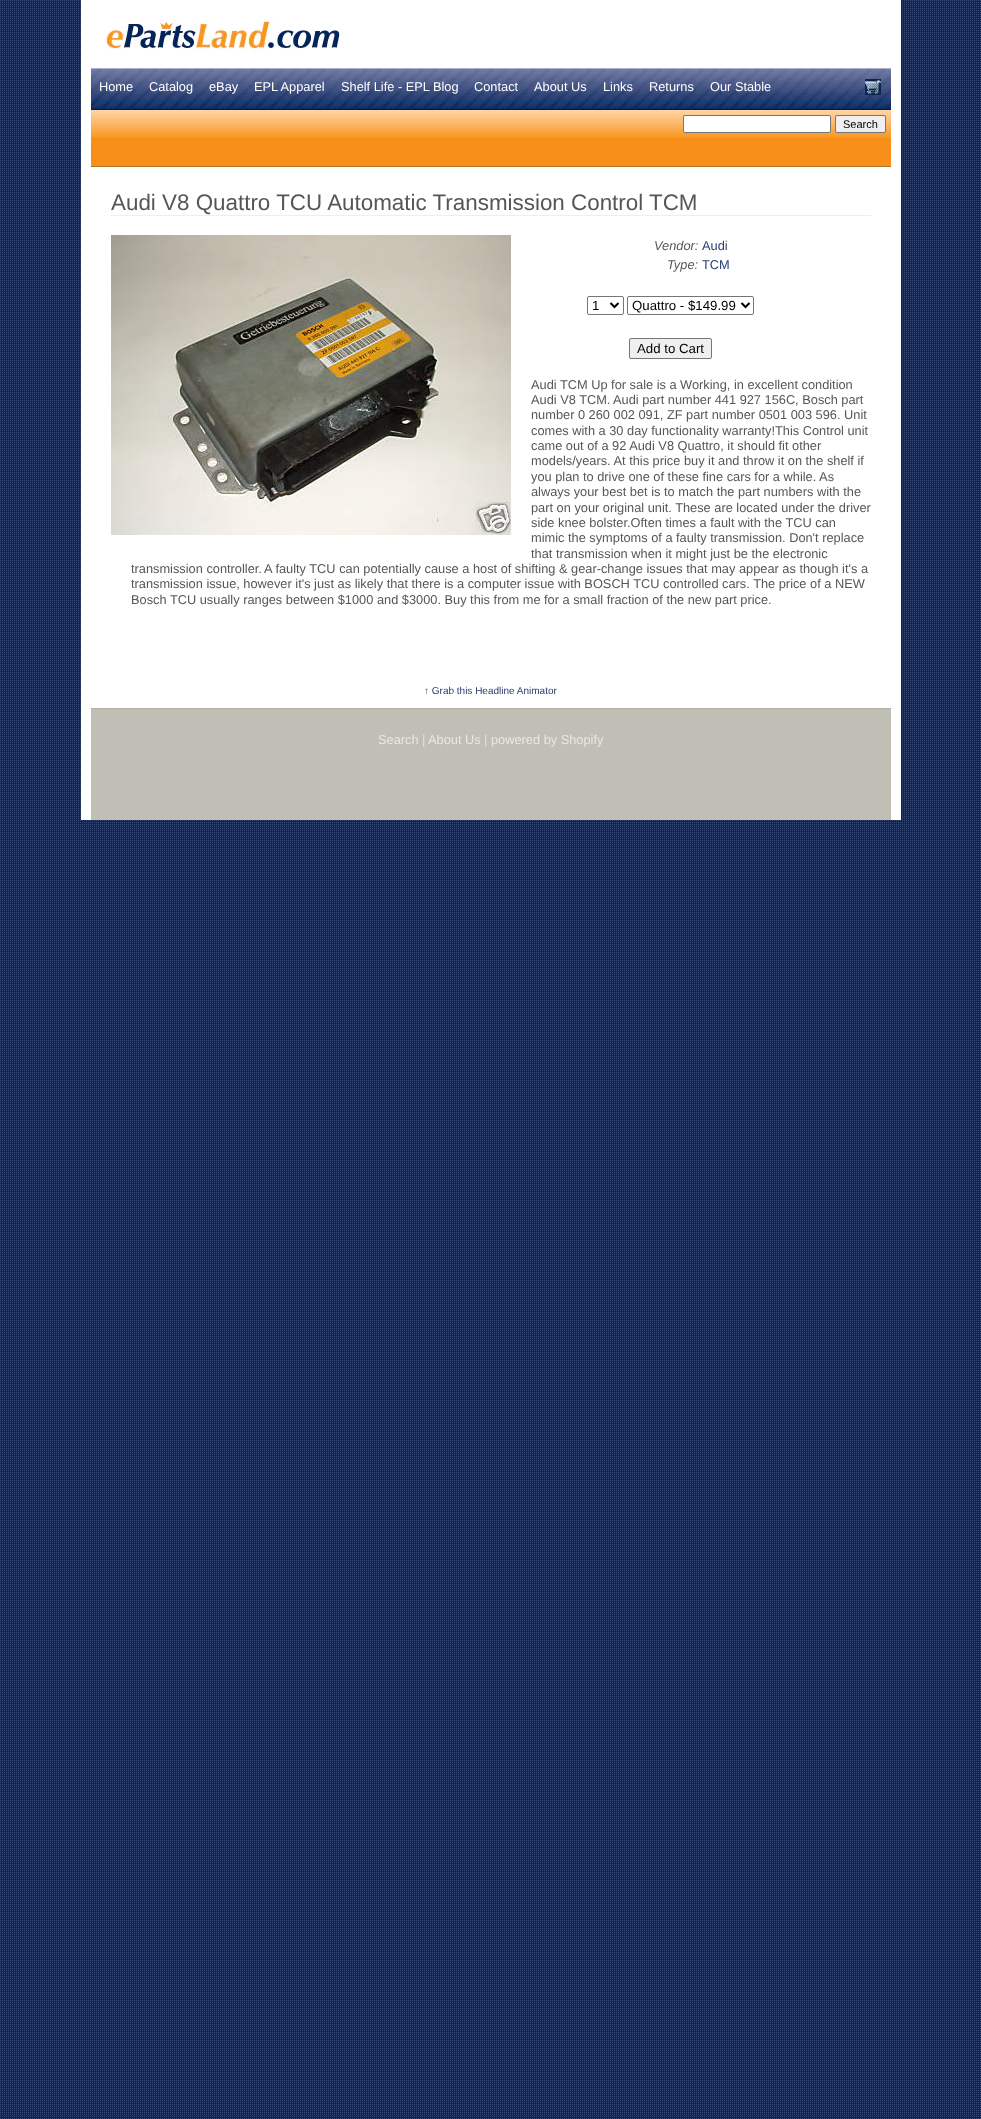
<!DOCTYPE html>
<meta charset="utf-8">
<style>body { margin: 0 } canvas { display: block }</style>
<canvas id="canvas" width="981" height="2119"></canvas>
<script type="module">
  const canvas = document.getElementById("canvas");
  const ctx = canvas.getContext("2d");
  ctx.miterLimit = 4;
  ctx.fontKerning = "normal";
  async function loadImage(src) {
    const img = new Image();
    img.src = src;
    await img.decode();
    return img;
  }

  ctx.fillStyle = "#ffffff";
  ctx.fillRect(0, 0, 981, 2119);
  ctx.drawImage(await loadImage("img1.png"), 0, 0, 981, 2119);
  ctx.fillRect(81, 0, 820, 820);
  ctx.drawImage(await loadImage("img2.png"), 106, 16, 237, 40);
  ctx.fillStyle = "#092a60";
  ctx.fillRect(91, 108, 800, 1);
  ctx.drawImage(await loadImage("img3.png"), 91, 69, 800, 39);
  ctx.fillStyle = "#aab1cb";
  ctx.fillRect(91, 68, 800, 1);
  ctx.fillStyle = "#061a3b";
  ctx.fillRect(91, 109, 800, 1);
  ctx.font = "12.8px Liberation Sans";
  ctx.fillStyle = "#ffffff";
  ctx.fillText("Home", 99, 91);
  ctx.fillText("Catalog", 149, 91);
  ctx.fillText("eBay", 209, 91);
  ctx.fillText("EPL Apparel", 254, 91);
  ctx.fillText("Shelf Life - EPL Blog", 341, 91);
  ctx.fillText("Contact", 474, 91);
  ctx.fillText("About Us", 534, 91);
  ctx.fillText("Links", 603, 91);
  ctx.fillText("Returns", 649, 91);
  ctx.fillText("Our Stable", 710, 91);
  ctx.drawImage(await loadImage("img4.png"), 865, 79, 16, 16);
  ctx.fillStyle = "#f78f19";
  ctx.fillRect(91, 138, 800, 28);
  ctx.drawImage(await loadImage("img5.png"), 91, 110, 800, 28);
  ctx.fillStyle = "#ad7227";
  ctx.fillRect(91, 166, 800, 1);
  ctx.fillStyle = "#ffffff";
  ctx.beginPath();
  ctx.roundRect(683.5, 115.5, 147, 17, 1.5);
  ctx.fill();
  ctx.strokeStyle = "#767676";
  ctx.stroke();
  ctx.fillStyle = "#efefef";
  ctx.beginPath();
  ctx.roundRect(835.5, 115.5, 50, 17, 1.5);
  ctx.fill();
  ctx.stroke();
  ctx.font = "11px Liberation Sans";
  ctx.fillStyle = "#000000";
  ctx.fillText("Search", 843, 128);
  ctx.fillStyle = "#eeeeee";
  ctx.fillRect(111, 215, 760, 1);
  ctx.font = "22.4px Liberation Sans";
  ctx.fillStyle = "#565652";
  ctx.fillText("Audi V8 Quattro TCU Automatic Transmission Control TCM", 111, 210);
  ctx.drawImage(await loadImage("img6.png"), 111, 235, 400, 300);
  ctx.font = "italic 12.8px Liberation Sans";
  ctx.fillText("Vendor:", 654, 250);
  ctx.font = "12.8px Liberation Sans";
  ctx.fillStyle = "#283f73";
  ctx.fillText("Audi", 702, 250);
  ctx.font = "italic 12.8px Liberation Sans";
  ctx.fillStyle = "#565652";
  ctx.fillText("Type:", 667, 269);
  ctx.font = "12.8px Liberation Sans";
  ctx.fillStyle = "#283f73";
  ctx.fillText("TCM", 702, 269);
  ctx.beginPath();
  ctx.roundRect(587.5, 296.5, 36, 18, 1.5);
  ctx.stroke();
  ctx.beginPath();
  ctx.moveTo(610.5, 303);
  ctx.lineTo(614.5, 307);
  ctx.lineTo(618.5, 303);
  ctx.strokeStyle = "#000000";
  ctx.lineWidth = 2;
  ctx.stroke();
  ctx.font = "13.25px Liberation Sans";
  ctx.fillStyle = "#000000";
  ctx.fillText("1", 592, 310);
  ctx.beginPath();
  ctx.roundRect(627.5, 296.5, 126, 18, 1.5);
  ctx.strokeStyle = "#767676";
  ctx.lineWidth = 1;
  ctx.stroke();
  ctx.beginPath();
  ctx.moveTo(741.5, 303);
  ctx.lineTo(745.5, 307);
  ctx.lineTo(749.5, 303);
  ctx.strokeStyle = "#000000";
  ctx.lineWidth = 2;
  ctx.stroke();
  ctx.fillText("Quattro - $149.99", 632, 310);
  ctx.fillStyle = "#efefef";
  ctx.beginPath();
  ctx.roundRect(629.5, 338.5, 82, 20, 1.5);
  ctx.fill();
  ctx.strokeStyle = "#767676";
  ctx.lineWidth = 1;
  ctx.stroke();
  ctx.fillStyle = "#000000";
  ctx.fillText("Add to Cart", 637, 353);
  ctx.font = "12.8px Liberation Sans";
  ctx.fillStyle = "#565652";
  ctx.fillText("Audi TCM Up for sale is a Working, in excellent condition", 531, 389);
  ctx.fillText("Audi V8 TCM.", 531, 404);
  ctx.fillText("Audi part number 441 927 156C, Bosch part", 613, 404);
  ctx.fillText("number 0 260 002 091, ZF part number 0501 003 596. Unit", 531, 419);
  ctx.fillText("comes with a 30 day functionality warranty!This Control unit", 531, 435);
  ctx.fillText("came out of a 92 Audi V8 Quattro, it should fit other", 531, 450);
  ctx.fillText("models/years. At this price buy it and throw it on the shelf if", 531, 465);
  ctx.fillText("you plan to drive one of these fine cars for a while. As", 531, 481);
  ctx.fillText("always your best bet is to match the part numbers with the", 531, 496);
  ctx.fillText("part on your original unit. These are located under the driver", 531, 512);
  ctx.fillText("side knee bolster.Often times a fault with the TCU can", 531, 527);
  ctx.fillText("mimic the symptoms of a faulty transmission. Don't replace", 531, 542);
  ctx.fillText("that transmission when it might just be the electronic", 531, 558);
  ctx.fillText("transmission controller.", 131, 573);
  ctx.fillText("A faulty TCU can potentially cause a host of shifting & gear-change issues that may appear as though it's a", 264, 573);
  ctx.fillText("transmission issue, however it's just as likely that there is a computer issue with BOSCH TCU controlled cars. The price of a NEW", 131, 588);
  ctx.fillText("Bosch TCU usually ranges between $1000 and $3000. Buy this from me for a small fraction of the new part price.", 131, 604);
  ctx.font = "10px Liberation Sans";
  ctx.fillStyle = "#283f73";
  ctx.fillText("↑ Grab this Headline Animator", 424, 694);
  ctx.fillStyle = "#bfbfb6";
  ctx.fillRect(91, 709, 800, 111);
  ctx.fillStyle = "#afafa6";
  ctx.fillRect(91, 708, 800, 1);
  ctx.font = "12.8px Liberation Sans";
  ctx.fillStyle = "#e9e9df";
  ctx.fillText("Search", 378, 744);
  ctx.fillStyle = "#e1e2d7";
  ctx.fillText("|", 422, 744);
  ctx.fillStyle = "#e9e9df";
  ctx.fillText("About Us", 428, 744);
  ctx.fillStyle = "#e1e2d7";
  ctx.fillText("|", 484, 744);
  ctx.fillStyle = "#e9e9df";
  ctx.fillText("powered by Shopify", 491, 744);
</script>
